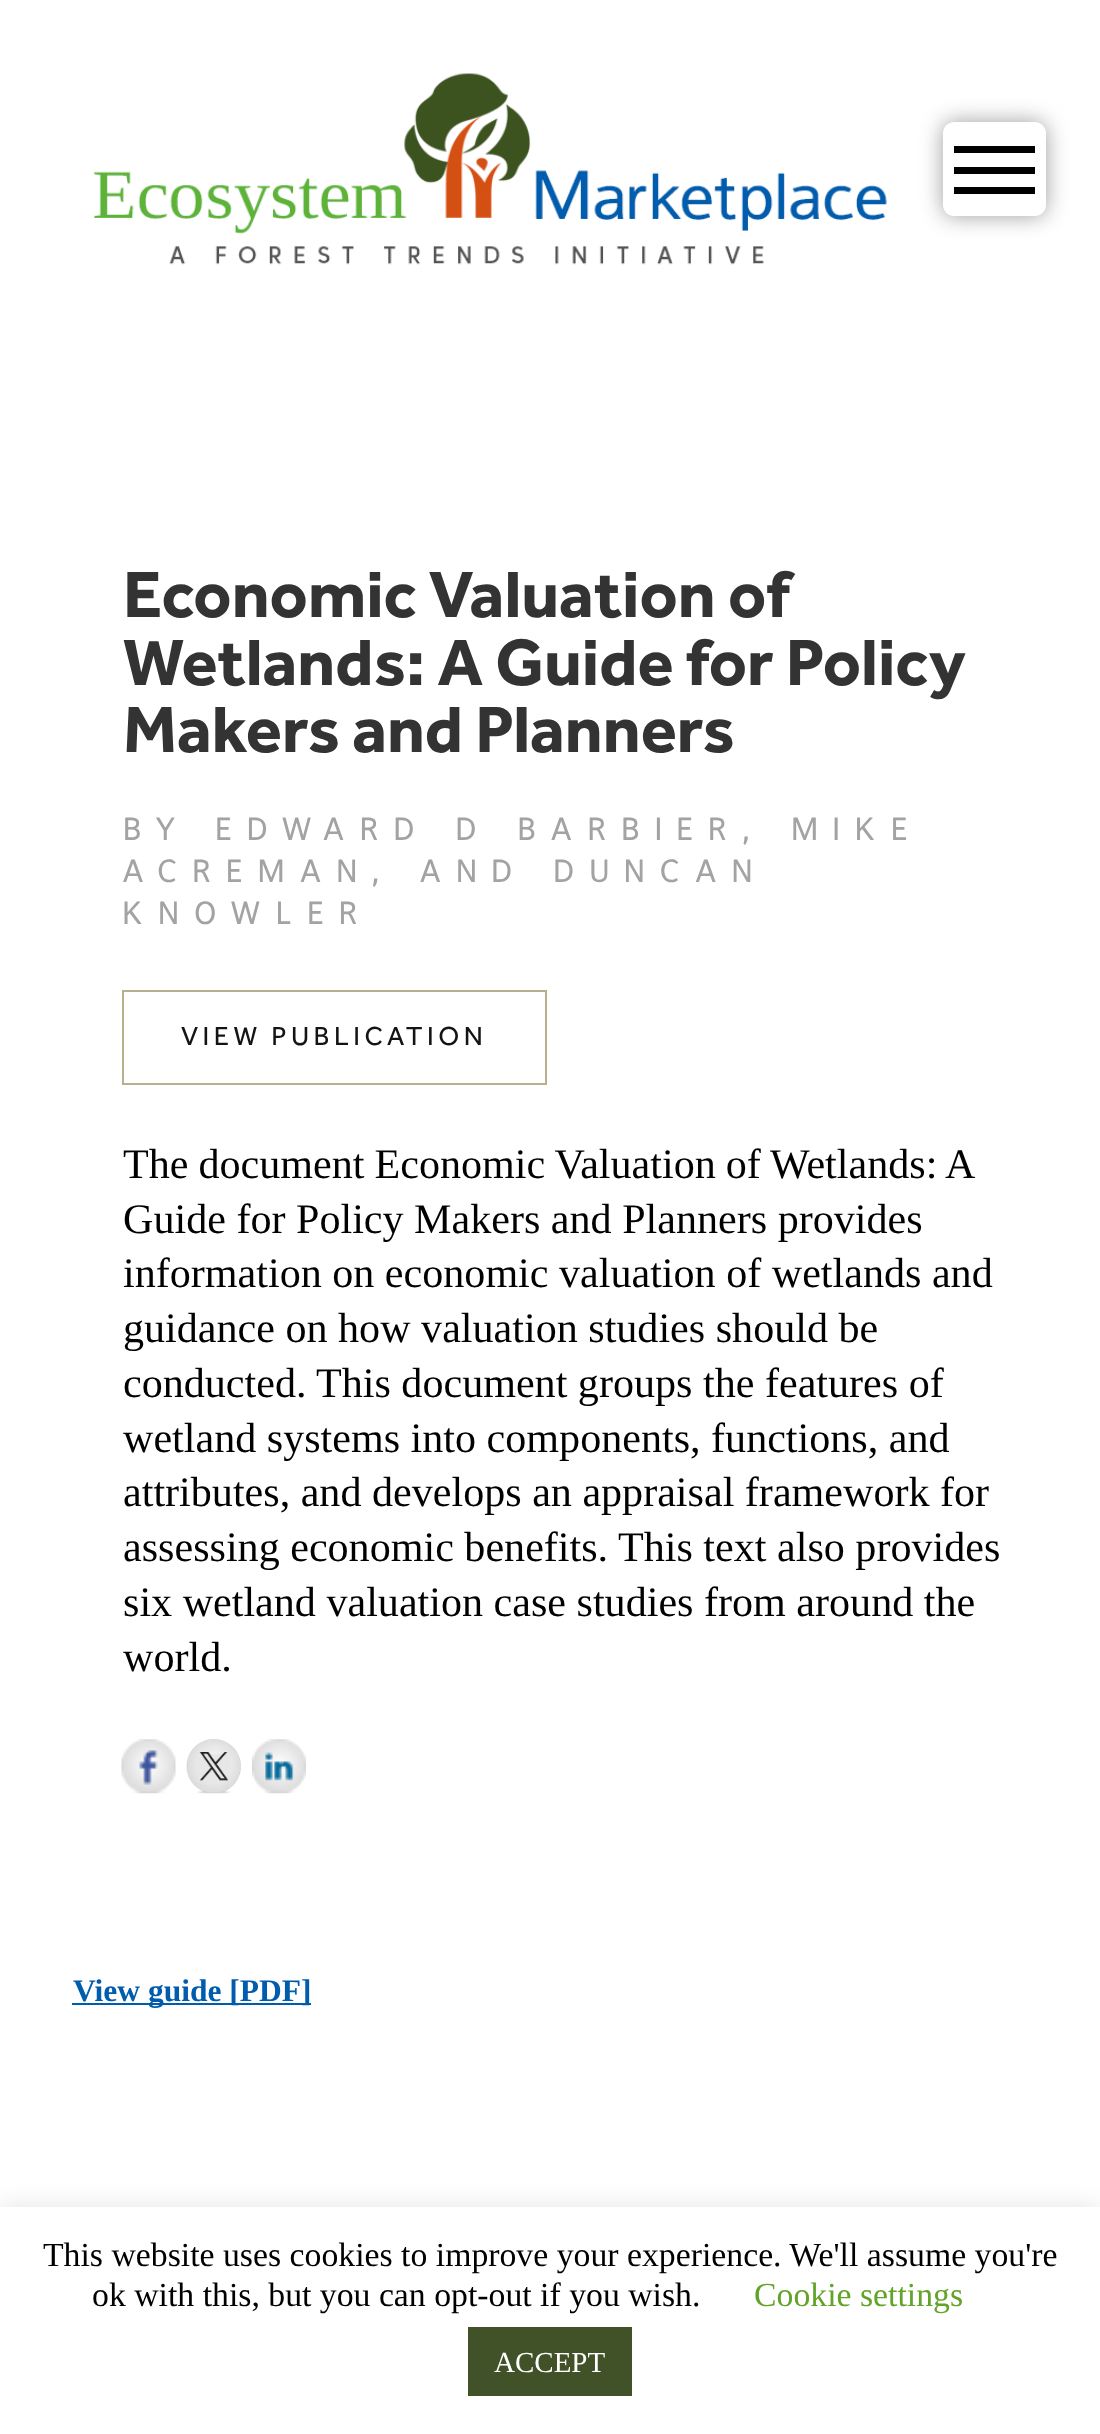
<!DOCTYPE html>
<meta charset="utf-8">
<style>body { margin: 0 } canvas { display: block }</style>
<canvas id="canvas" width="1100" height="2434"></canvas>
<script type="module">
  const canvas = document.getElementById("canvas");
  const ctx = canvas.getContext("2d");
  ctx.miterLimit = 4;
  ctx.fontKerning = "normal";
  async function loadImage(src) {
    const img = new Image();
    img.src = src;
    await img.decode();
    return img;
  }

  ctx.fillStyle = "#ffffff";
  ctx.fillRect(0, 0, 1100, 2434);
  ctx.drawImage(await loadImage("img1.png"), 94, 73, 793, 192);
  ctx.save();
  ctx.beginPath();
  ctx.moveTo(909, 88);
  ctx.lineTo(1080, 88);
  ctx.lineTo(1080, 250);
  ctx.lineTo(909, 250);
  ctx.closePath();
  ctx.moveTo(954, 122);
  ctx.lineTo(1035, 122);
  ctx.bezierCurveTo(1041, 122, 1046, 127, 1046, 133);
  ctx.lineTo(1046, 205);
  ctx.bezierCurveTo(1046, 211, 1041, 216, 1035, 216);
  ctx.lineTo(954, 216);
  ctx.bezierCurveTo(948, 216, 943, 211, 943, 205);
  ctx.lineTo(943, 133);
  ctx.bezierCurveTo(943, 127, 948, 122, 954, 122);
  ctx.closePath();
  ctx.clip("evenodd");
  ctx.fillStyle = "#9d9d9d";
  ctx.filter = "blur(11px)";
  ctx.beginPath();
  ctx.roundRect(943, 122, 103, 94, 11);
  ctx.fill();
  ctx.filter = "none";
  ctx.restore();
  ctx.fillStyle = "#000000";
  ctx.fillRect(954, 167, 81, 7);
  ctx.fillRect(954, 146, 81, 7);
  ctx.fillRect(954, 187, 81, 7);
  ctx.font = "bold 67.5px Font";
  ctx.fillStyle = "#333333";
  ctx.fillText("Economic Valuation of", 123, 617);
  ctx.fillText("Wetlands: A Guide for Policy", 123, 685);
  ctx.fillText("Makers and Planners", 123, 752);
  ctx.letterSpacing = "15.55px";
  ctx.font = "500 32.4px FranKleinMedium";
  ctx.fillStyle = "#a3a3a3";
  ctx.fillText("BY EDWARD D BARBIER, MIKE", 123, 840);
  ctx.fillText("ACREMAN, AND DUNCAN", 123, 882);
  ctx.fillText("KNOWLER", 123, 924);
  ctx.strokeStyle = "#b8b08d";
  ctx.lineWidth = 2;
  ctx.strokeRect(123, 991, 423, 93);
  ctx.letterSpacing = "4.5px";
  ctx.font = "27px Font";
  ctx.fillStyle = "#141414";
  ctx.fillText("VIEW PUBLICATION", 181, 1045);
  ctx.letterSpacing = "0px";
  ctx.wordSpacing = "-0.5px";
  ctx.font = "42.1px Liberation Serif";
  ctx.fillStyle = "#000000";
  ctx.fillText("The document Economic Valuation of Wetlands: A", 123, 1178);
  ctx.wordSpacing = "0px";
  ctx.fillText("Guide for Policy Makers and Planners provides", 123, 1233);
  ctx.fillText("information on economic valuation of wetlands and", 123, 1287);
  ctx.fillText("guidance on how valuation studies should be", 123, 1342);
  ctx.fillText("conducted.", 123, 1397);
  ctx.fillText("This document groups the features of", 316, 1397);
  ctx.fillText("wetland systems into components, functions, and", 123, 1452);
  ctx.fillText("attributes, and develops an appraisal framework for", 123, 1506);
  ctx.fillText("assessing economic benefits.", 123, 1561);
  ctx.fillText("This text also provides", 618, 1561);
  ctx.fillText("six wetland valuation case studies from around the", 123, 1616);
  ctx.fillText("world.", 123, 1671);
  ctx.drawImage(await loadImage("img2.png"), 121, 1739, 55, 55);
  ctx.drawImage(await loadImage("img3.png"), 186, 1739, 55, 55);
  ctx.drawImage(await loadImage("img4.png"), 252, 1739, 54, 55);
  ctx.fillStyle = "#005cad";
  ctx.fillRect(72, 2003, 239, 2);
  ctx.font = "bold 31.5px Liberation Serif";
  ctx.fillText("View guide [PDF]", 73, 2001);
  ctx.fillStyle = "rgba(172, 171, 171, 0.3)";
  ctx.filter = "blur(11px)";
  ctx.beginPath();
  ctx.rect(0, 2205, 1100, 227);
  ctx.fill();
  ctx.filter = "none";
  ctx.fillStyle = "#ffffff";
  ctx.fillRect(0, 2207, 1100, 227);
  ctx.font = "33.75px Liberation Serif";
  ctx.fillStyle = "#000000";
  ctx.fillText("This website uses cookies to improve your experience. We'll assume you're", 43, 2266);
  ctx.fillText("ok with this, but you can opt-out if you wish.", 92, 2306);
  ctx.fillStyle = "#62a329";
  ctx.fillText("Cookie settings", 754, 2306);
  ctx.fillStyle = "#415228";
  ctx.fillRect(468, 2327, 164, 69);
  ctx.font = "29px Liberation Serif";
  ctx.fillStyle = "#ffffff";
  ctx.fillText("ACCEPT", 494, 2372);
</script>
